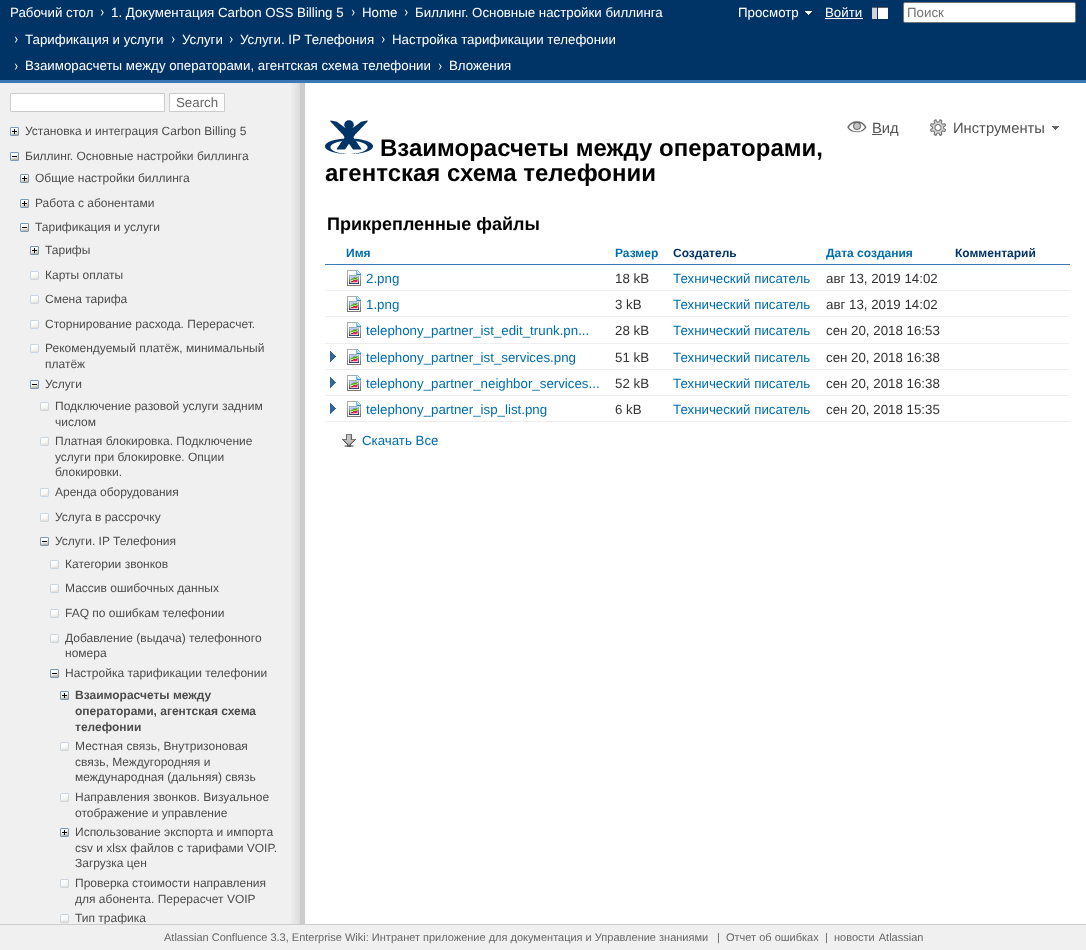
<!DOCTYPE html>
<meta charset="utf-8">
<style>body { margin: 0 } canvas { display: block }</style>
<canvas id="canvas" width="1086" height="950"></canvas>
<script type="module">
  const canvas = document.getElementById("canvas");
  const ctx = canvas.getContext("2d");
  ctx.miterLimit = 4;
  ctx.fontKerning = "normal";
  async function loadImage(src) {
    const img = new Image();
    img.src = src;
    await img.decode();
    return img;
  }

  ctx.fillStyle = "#ffffff";
  ctx.fillRect(0, 0, 1086, 950);
  ctx.fillStyle = "#003366";
  ctx.fillRect(0, 0, 1086, 80);
  ctx.fillStyle = "#3c78b5";
  ctx.fillRect(0, 80, 1086, 3);
  ctx.font = "13.3px Liberation Sans";
  ctx.fillStyle = "#ffffff";
  ctx.fillText("Рабочий стол", 10, 17);
  ctx.drawImage(await loadImage("img1.png"), 100, 9, 4, 7);
  ctx.fillText("1. Документация Carbon OSS Billing 5", 111, 17);
  ctx.drawImage(await loadImage("img1.png"), 351, 9, 4, 7);
  ctx.fillText("Home", 362, 17);
  ctx.drawImage(await loadImage("img1.png"), 404, 9, 4, 7);
  ctx.fillText("Биллинг. Основные настройки биллинга", 415, 17);
  ctx.drawImage(await loadImage("img1.png"), 14, 36, 4, 7);
  ctx.fillText("Тарификация и услуги", 25, 44);
  ctx.drawImage(await loadImage("img1.png"), 171, 36, 4, 7);
  ctx.fillText("Услуги", 182, 44);
  ctx.drawImage(await loadImage("img1.png"), 229, 36, 4, 7);
  ctx.fillText("Услуги. IP Телефония", 240, 44);
  ctx.drawImage(await loadImage("img1.png"), 381, 36, 4, 7);
  ctx.fillText("Настройка тарификации телефонии", 392, 44);
  ctx.drawImage(await loadImage("img1.png"), 14, 63, 4, 7);
  ctx.fillText("Взаиморасчеты между операторами, агентская схема телефонии", 25, 70);
  ctx.drawImage(await loadImage("img1.png"), 438, 63, 4, 7);
  ctx.fillText("Вложения", 449, 70);
  ctx.drawImage(await loadImage("img2.png"), 805, 11, 7, 4);
  ctx.fillText("Просмотр", 738, 17);
  ctx.fillText("Войти", 825, 17);
  ctx.fillRect(825, 18, 38, 1);
  ctx.drawImage(await loadImage("img3.png"), 872, 7, 16, 12);
  ctx.beginPath();
  ctx.roundRect(903.5, 2.5, 172, 20, 1.5);
  ctx.fill();
  ctx.strokeStyle = "#767676";
  ctx.stroke();
  ctx.fillStyle = "#757575";
  ctx.fillText("Поиск", 907, 17);
  ctx.fillStyle = "#f0f0f0";
  ctx.fillRect(0, 83, 291, 841);
  ctx.drawImage(await loadImage("img4.png"), 291, 83, 9, 841);
  ctx.fillStyle = "#ffffff";
  ctx.beginPath();
  ctx.rect(10.5, 93.5, 154, 18);
  ctx.fill();
  ctx.strokeStyle = "#cccccc";
  ctx.stroke();
  ctx.beginPath();
  ctx.rect(169.5, 93.5, 55, 18);
  ctx.fill();
  ctx.stroke();
  ctx.fillStyle = "#666666";
  ctx.fillText("Search", 176, 107);
  ctx.drawImage(await loadImage("img5.png"), 10, 127, 9, 9);
  ctx.font = "12px Liberation Sans";
  ctx.fillStyle = "#4c4c4c";
  ctx.fillText("Установка и интеграция Carbon Billing 5", 25, 135);
  ctx.drawImage(await loadImage("img6.png"), 10, 152, 9, 9);
  ctx.fillText("Биллинг. Основные настройки биллинга", 25, 160);
  ctx.drawImage(await loadImage("img5.png"), 20, 174, 9, 9);
  ctx.fillText("Общие настройки биллинга", 35, 182);
  ctx.drawImage(await loadImage("img5.png"), 20, 199, 9, 9);
  ctx.fillText("Работа с абонентами", 35, 207);
  ctx.drawImage(await loadImage("img6.png"), 20, 223, 9, 9);
  ctx.fillText("Тарификация и услуги", 35, 231);
  ctx.drawImage(await loadImage("img5.png"), 30, 246, 9, 9);
  ctx.fillText("Тарифы", 45, 254);
  ctx.drawImage(await loadImage("img7.png"), 30, 271, 9, 9);
  ctx.fillText("Карты оплаты", 45, 279);
  ctx.drawImage(await loadImage("img7.png"), 30, 295, 9, 9);
  ctx.fillText("Смена тарифа", 45, 303);
  ctx.drawImage(await loadImage("img7.png"), 30, 320, 9, 9);
  ctx.fillText("Сторнирование расхода. Перерасчет.", 45, 328);
  ctx.drawImage(await loadImage("img7.png"), 30, 344, 9, 9);
  ctx.fillText("Рекомендуемый платёж, минимальный", 45, 352);
  ctx.fillText("платёж", 45, 368);
  ctx.drawImage(await loadImage("img6.png"), 30, 380, 9, 9);
  ctx.fillText("Услуги", 45, 388);
  ctx.drawImage(await loadImage("img7.png"), 40, 402, 9, 9);
  ctx.fillText("Подключение разовой услуги задним", 55, 410);
  ctx.fillText("числом", 55, 426);
  ctx.drawImage(await loadImage("img7.png"), 40, 437, 9, 9);
  ctx.fillText("Платная блокировка. Подключение", 55, 445);
  ctx.fillText("услуги при блокировке. Опции", 55, 461);
  ctx.fillText("блокировки.", 55, 476);
  ctx.drawImage(await loadImage("img7.png"), 40, 488, 9, 9);
  ctx.fillText("Аренда оборудования", 55, 496);
  ctx.drawImage(await loadImage("img7.png"), 40, 513, 9, 9);
  ctx.fillText("Услуга в рассрочку", 55, 521);
  ctx.drawImage(await loadImage("img6.png"), 40, 537, 9, 9);
  ctx.fillText("Услуги. IP Телефония", 55, 545);
  ctx.drawImage(await loadImage("img7.png"), 50, 560, 9, 9);
  ctx.fillText("Категории звонков", 65, 568);
  ctx.drawImage(await loadImage("img7.png"), 50, 584, 9, 9);
  ctx.fillText("Массив ошибочных данных", 65, 592);
  ctx.drawImage(await loadImage("img7.png"), 50, 609, 9, 9);
  ctx.fillText("FAQ по ошибкам телефонии", 65, 617);
  ctx.drawImage(await loadImage("img7.png"), 50, 634, 9, 9);
  ctx.fillText("Добавление (выдача) телефонного", 65, 642);
  ctx.fillText("номера", 65, 657);
  ctx.drawImage(await loadImage("img6.png"), 50, 669, 9, 9);
  ctx.fillText("Настройка тарификации телефонии", 65, 677);
  ctx.drawImage(await loadImage("img5.png"), 60, 691, 9, 9);
  ctx.font = "bold 12px Liberation Sans";
  ctx.fillText("Взаиморасчеты между", 75, 699);
  ctx.fillText("операторами, агентская схема", 75, 715);
  ctx.fillText("телефонии", 75, 731);
  ctx.drawImage(await loadImage("img7.png"), 60, 742, 9, 9);
  ctx.font = "12px Liberation Sans";
  ctx.fillText("Местная связь, Внутризоновая", 75, 750);
  ctx.fillText("связь, Междугородняя и", 75, 766);
  ctx.fillText("международная (дальняя) связь", 75, 781);
  ctx.drawImage(await loadImage("img7.png"), 60, 793, 9, 9);
  ctx.fillText("Направления звонков. Визуальное", 75, 801);
  ctx.fillText("отображение и управление", 75, 817);
  ctx.drawImage(await loadImage("img5.png"), 60, 828, 9, 9);
  ctx.fillText("Использование экспорта и импорта", 75, 836);
  ctx.fillText("csv и xlsx файлов с тарифами VOIP.", 75, 852);
  ctx.fillText("Загрузка цен", 75, 867);
  ctx.drawImage(await loadImage("img7.png"), 60, 879, 9, 9);
  ctx.fillText("Проверка стоимости направления", 75, 887);
  ctx.fillText("для абонента. Перерасчет VOIP", 75, 903);
  ctx.drawImage(await loadImage("img7.png"), 60, 914, 9, 9);
  ctx.fillText("Тип трафика", 75, 922);
  ctx.fillStyle = "#cccccc";
  ctx.fillRect(300, 83, 5, 841);
  ctx.drawImage(await loadImage("img8.png"), 847, 121, 20, 12);
  ctx.fillStyle = "#535353";
  ctx.fillRect(872, 134, 10, 1);
  ctx.font = "14.75px Liberation Sans";
  ctx.fillText("Вид", 872, 133);
  ctx.drawImage(await loadImage("img9.png"), 1052, 126, 7, 4);
  ctx.drawImage(await loadImage("img10.png"), 930, 119, 16, 17);
  ctx.fillText("Инструменты", 953, 133);
  ctx.drawImage(await loadImage("img11.png"), 325, 120, 48, 34);
  ctx.font = "bold 24px Liberation Sans";
  ctx.fillStyle = "#000000";
  ctx.fillText("Взаиморасчеты между операторами,", 380, 156);
  ctx.fillText("агентская схема телефонии", 325, 181);
  ctx.font = "bold 18px Liberation Sans";
  ctx.fillText("Прикрепленные файлы", 327, 230);
  ctx.font = "bold 12px Liberation Sans";
  ctx.fillStyle = "#006daf";
  ctx.fillText("Имя", 346, 257);
  ctx.fillText("Размер", 615, 257);
  ctx.fillStyle = "#003366";
  ctx.fillText("Создатель", 673, 257);
  ctx.fillStyle = "#006daf";
  ctx.fillText("Дата создания", 826, 257);
  ctx.fillStyle = "#003366";
  ctx.fillText("Комментарий", 955, 257);
  ctx.fillStyle = "#3c78b5";
  ctx.fillRect(325, 264, 745, 1);
  ctx.drawImage(await loadImage("img12.png"), 347, 270, 14, 16);
  ctx.font = "13.3px Liberation Sans";
  ctx.fillStyle = "#006daf";
  ctx.fillText("2.png", 366, 283);
  ctx.fillStyle = "#333333";
  ctx.fillText("18 kB", 615, 283);
  ctx.fillStyle = "#006daf";
  ctx.fillText("Технический писатель", 673, 283);
  ctx.fillStyle = "#333333";
  ctx.fillText("авг 13, 2019 14:02", 826, 283);
  ctx.fillStyle = "#eeeeee";
  ctx.fillRect(325, 290, 745, 1);
  ctx.drawImage(await loadImage("img12.png"), 347, 296, 14, 16);
  ctx.fillStyle = "#006daf";
  ctx.fillText("1.png", 366, 309);
  ctx.fillStyle = "#333333";
  ctx.fillText("3 kB", 615, 309);
  ctx.fillStyle = "#006daf";
  ctx.fillText("Технический писатель", 673, 309);
  ctx.fillStyle = "#333333";
  ctx.fillText("авг 13, 2019 14:02", 826, 309);
  ctx.fillStyle = "#eeeeee";
  ctx.fillRect(325, 316, 745, 1);
  ctx.drawImage(await loadImage("img12.png"), 347, 322, 14, 16);
  ctx.fillStyle = "#006daf";
  ctx.fillText("telephony_partner_ist_edit_trunk.pn...", 366, 335);
  ctx.fillStyle = "#333333";
  ctx.fillText("28 kB", 615, 335);
  ctx.fillStyle = "#006daf";
  ctx.fillText("Технический писатель", 673, 335);
  ctx.fillStyle = "#333333";
  ctx.fillText("сен 20, 2018 16:53", 826, 335);
  ctx.fillStyle = "#eeeeee";
  ctx.fillRect(325, 343, 745, 1);
  ctx.drawImage(await loadImage("img13.png"), 330, 351, 6, 11);
  ctx.drawImage(await loadImage("img12.png"), 347, 349, 14, 16);
  ctx.fillStyle = "#006daf";
  ctx.fillText("telephony_partner_ist_services.png", 366, 362);
  ctx.fillStyle = "#333333";
  ctx.fillText("51 kB", 615, 362);
  ctx.fillStyle = "#006daf";
  ctx.fillText("Технический писатель", 673, 362);
  ctx.fillStyle = "#333333";
  ctx.fillText("сен 20, 2018 16:38", 826, 362);
  ctx.fillStyle = "#eeeeee";
  ctx.fillRect(325, 369, 745, 1);
  ctx.drawImage(await loadImage("img13.png"), 330, 377, 6, 11);
  ctx.drawImage(await loadImage("img12.png"), 347, 375, 14, 16);
  ctx.fillStyle = "#006daf";
  ctx.fillText("telephony_partner_neighbor_services...", 366, 388);
  ctx.fillStyle = "#333333";
  ctx.fillText("52 kB", 615, 388);
  ctx.fillStyle = "#006daf";
  ctx.fillText("Технический писатель", 673, 388);
  ctx.fillStyle = "#333333";
  ctx.fillText("сен 20, 2018 16:38", 826, 388);
  ctx.fillStyle = "#eeeeee";
  ctx.fillRect(325, 395, 745, 1);
  ctx.drawImage(await loadImage("img13.png"), 330, 403, 6, 11);
  ctx.drawImage(await loadImage("img12.png"), 347, 401, 14, 16);
  ctx.fillStyle = "#006daf";
  ctx.fillText("telephony_partner_isp_list.png", 366, 414);
  ctx.fillStyle = "#333333";
  ctx.fillText("6 kB", 615, 414);
  ctx.fillStyle = "#006daf";
  ctx.fillText("Технический писатель", 673, 414);
  ctx.fillStyle = "#333333";
  ctx.fillText("сен 20, 2018 15:35", 826, 414);
  ctx.fillStyle = "#eeeeee";
  ctx.fillRect(325, 421, 745, 1);
  ctx.drawImage(await loadImage("img14.png"), 342, 434, 14, 13);
  ctx.fillStyle = "#006daf";
  ctx.fillText("Скачать Все", 362, 445);
  ctx.fillStyle = "#f0f0f0";
  ctx.fillRect(0, 925, 1086, 25);
  ctx.fillStyle = "#cccccc";
  ctx.fillRect(0, 924, 1086, 1);
  ctx.font = "11px Liberation Sans";
  ctx.fillStyle = "#666666";
  ctx.fillText("Atlassian Confluence 3.3, Enterprise Wiki: Интранет приложение для документация и Управление знаниями", 164, 941);
  ctx.fillText("|", 717, 941);
  ctx.fillText("Отчет об ошибках", 726, 941);
  ctx.fillText("|", 825, 941);
  ctx.wordSpacing = "1px";
  ctx.fillText("новости Atlassian", 834, 941);
</script>
